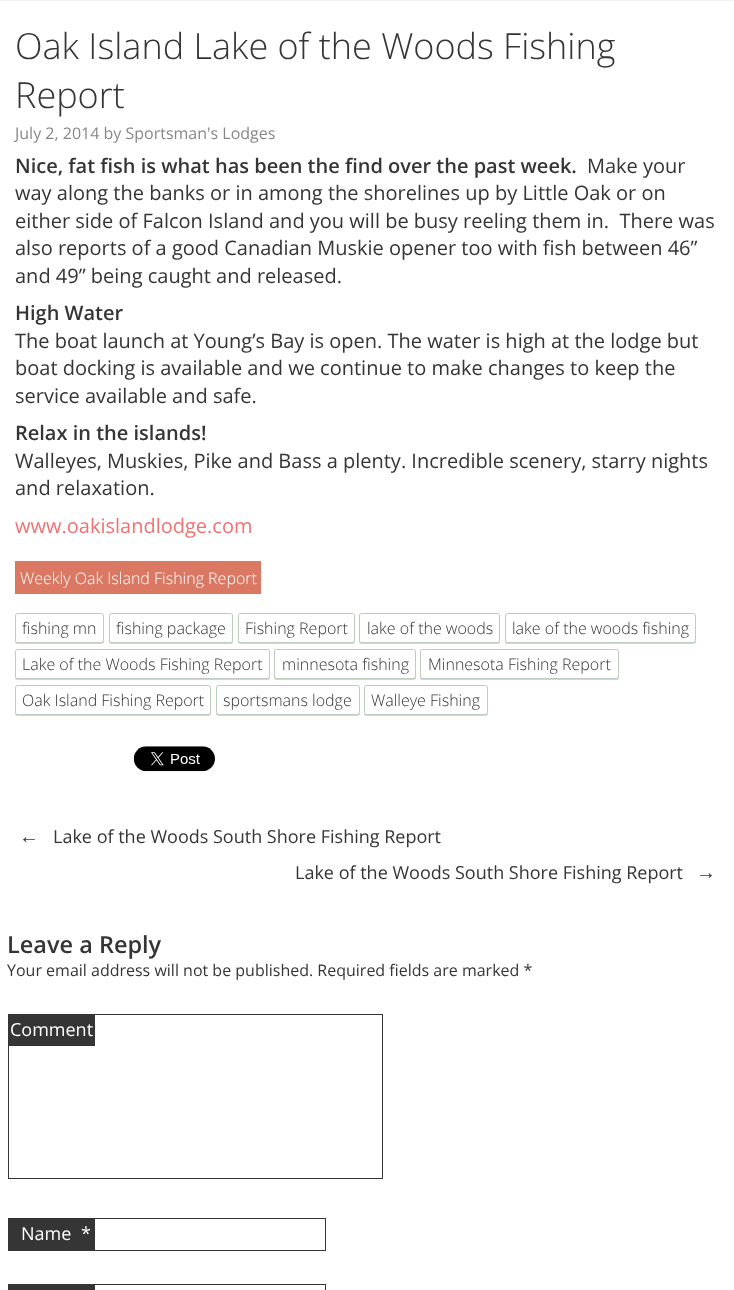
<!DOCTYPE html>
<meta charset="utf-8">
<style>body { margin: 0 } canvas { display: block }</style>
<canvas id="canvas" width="734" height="1290"></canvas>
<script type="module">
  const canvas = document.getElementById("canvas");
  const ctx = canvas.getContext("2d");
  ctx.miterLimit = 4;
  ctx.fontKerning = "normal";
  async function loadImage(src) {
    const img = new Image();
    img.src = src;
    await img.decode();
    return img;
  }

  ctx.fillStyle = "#ffffff";
  ctx.fillRect(0, 0, 734, 1290);
  ctx.fillStyle = "#f1f1f1";
  ctx.fillRect(0, 0, 734, 1);
  ctx.font = "300 36px Open Sans";
  ctx.fillStyle = "#343534";
  ctx.fillText("Oak Island Lake of the Woods Fishing", 15, 59);
  ctx.fillText("Report", 15, 108);
  ctx.font = "16px Open Sans";
  ctx.fillStyle = "#888888";
  ctx.fillText("July 2, 2014 by Sportsman's Lodges", 15, 139);
  ctx.font = "600 20px Open Sans";
  ctx.fillStyle = "#343534";
  ctx.fillText("Nice, fat fish is what has been the find over the past week.", 15, 173);
  ctx.font = "20px Open Sans";
  ctx.fillText("Make your", 587, 173);
  ctx.fillText("way along the banks or in among the shorelines up by Little Oak or on", 15, 200);
  ctx.fillText("either side of Falcon Island and you will be busy reeling them in.  There was", 15, 228);
  ctx.fillText("also reports of a good Canadian Muskie opener too with fish between 46”", 15, 255);
  ctx.fillText("and 49” being caught and released.", 15, 283);
  ctx.font = "600 20px Open Sans";
  ctx.fillText("High Water", 15, 320);
  ctx.font = "20px Open Sans";
  ctx.fillText("The boat launch at Young’s Bay is open. The water is high at the lodge but", 15, 348);
  ctx.fillText("boat docking is available and we continue to make changes to keep the", 15, 375);
  ctx.fillText("service available and safe.", 15, 403);
  ctx.font = "600 20px Open Sans";
  ctx.fillText("Relax in the islands!", 15, 440);
  ctx.font = "20px Open Sans";
  ctx.fillText("Walleyes, Muskies, Pike and Bass a plenty. Incredible scenery, starry nights", 15, 468);
  ctx.fillText("and relaxation.", 15, 495);
  ctx.fillStyle = "#f07373";
  ctx.fillText("www.oakislandlodge.com", 15, 533);
  ctx.fillStyle = "#db7863";
  ctx.fillRect(15, 561, 246, 33);
  ctx.font = "300 16px Open Sans";
  ctx.fillStyle = "#ffffff";
  ctx.fillText("Weekly Oak Island Fishing Report", 20, 584);
  ctx.fillStyle = "#d1d6d1";
  ctx.filter = "blur(0.5px)";
  ctx.beginPath();
  ctx.roundRect(15, 614, 89, 30, 2.5);
  ctx.fill();
  ctx.filter = "none";
  ctx.fillStyle = "#ffffff";
  ctx.beginPath();
  ctx.roundRect(15.5, 613.5, 88, 29, 2);
  ctx.fill();
  ctx.strokeStyle = "#bbcebb";
  ctx.stroke();
  ctx.fillStyle = "#343534";
  ctx.fillText("fishing mn", 22, 634);
  ctx.fillStyle = "#d1d6d1";
  ctx.filter = "blur(0.5px)";
  ctx.beginPath();
  ctx.roundRect(109, 614, 124, 30, 2.5);
  ctx.fill();
  ctx.filter = "none";
  ctx.fillStyle = "#ffffff";
  ctx.beginPath();
  ctx.roundRect(109.5, 613.5, 123, 29, 2);
  ctx.fill();
  ctx.stroke();
  ctx.fillStyle = "#343534";
  ctx.fillText("fishing package", 116, 634);
  ctx.fillStyle = "#d1d6d1";
  ctx.filter = "blur(0.5px)";
  ctx.beginPath();
  ctx.roundRect(238, 614, 117, 30, 2.5);
  ctx.fill();
  ctx.filter = "none";
  ctx.fillStyle = "#ffffff";
  ctx.beginPath();
  ctx.roundRect(238.5, 613.5, 116, 29, 2);
  ctx.fill();
  ctx.stroke();
  ctx.fillStyle = "#343534";
  ctx.fillText("Fishing Report", 245, 634);
  ctx.fillStyle = "#d1d6d1";
  ctx.filter = "blur(0.5px)";
  ctx.beginPath();
  ctx.roundRect(359, 614, 141, 30, 2.5);
  ctx.fill();
  ctx.filter = "none";
  ctx.fillStyle = "#ffffff";
  ctx.beginPath();
  ctx.roundRect(359.5, 613.5, 140, 29, 2);
  ctx.fill();
  ctx.stroke();
  ctx.fillStyle = "#343534";
  ctx.fillText("lake of the woods", 367, 634);
  ctx.fillStyle = "#d1d6d1";
  ctx.filter = "blur(0.5px)";
  ctx.beginPath();
  ctx.roundRect(505, 614, 191, 30, 2.5);
  ctx.fill();
  ctx.filter = "none";
  ctx.fillStyle = "#ffffff";
  ctx.beginPath();
  ctx.roundRect(505.5, 613.5, 190, 29, 2);
  ctx.fill();
  ctx.stroke();
  ctx.fillStyle = "#343534";
  ctx.fillText("lake of the woods fishing", 512, 634);
  ctx.fillStyle = "#d1d6d1";
  ctx.filter = "blur(0.5px)";
  ctx.beginPath();
  ctx.roundRect(15, 650, 255, 30, 2.5);
  ctx.fill();
  ctx.filter = "none";
  ctx.fillStyle = "#ffffff";
  ctx.beginPath();
  ctx.roundRect(15.5, 649.5, 254, 29, 2);
  ctx.fill();
  ctx.stroke();
  ctx.fillStyle = "#343534";
  ctx.fillText("Lake of the Woods Fishing Report", 22, 670);
  ctx.fillStyle = "#d1d6d1";
  ctx.filter = "blur(0.5px)";
  ctx.beginPath();
  ctx.roundRect(274, 650, 142, 30, 2.5);
  ctx.fill();
  ctx.filter = "none";
  ctx.fillStyle = "#ffffff";
  ctx.beginPath();
  ctx.roundRect(274.5, 649.5, 141, 29, 2);
  ctx.fill();
  ctx.stroke();
  ctx.fillStyle = "#343534";
  ctx.fillText("minnesota fishing", 282, 670);
  ctx.fillStyle = "#d1d6d1";
  ctx.filter = "blur(0.5px)";
  ctx.beginPath();
  ctx.roundRect(420, 650, 199, 30, 2.5);
  ctx.fill();
  ctx.filter = "none";
  ctx.fillStyle = "#ffffff";
  ctx.beginPath();
  ctx.roundRect(420.5, 649.5, 198, 29, 2);
  ctx.fill();
  ctx.stroke();
  ctx.fillStyle = "#343534";
  ctx.fillText("Minnesota Fishing Report", 428, 670);
  ctx.fillStyle = "#d1d6d1";
  ctx.filter = "blur(0.5px)";
  ctx.beginPath();
  ctx.roundRect(15, 686, 196, 30, 2.5);
  ctx.fill();
  ctx.filter = "none";
  ctx.fillStyle = "#ffffff";
  ctx.beginPath();
  ctx.roundRect(15.5, 685.5, 195, 29, 2);
  ctx.fill();
  ctx.stroke();
  ctx.fillStyle = "#343534";
  ctx.fillText("Oak Island Fishing Report", 22, 706);
  ctx.fillStyle = "#d1d6d1";
  ctx.filter = "blur(0.5px)";
  ctx.beginPath();
  ctx.roundRect(216, 686, 144, 30, 2.5);
  ctx.fill();
  ctx.filter = "none";
  ctx.fillStyle = "#ffffff";
  ctx.beginPath();
  ctx.roundRect(216.5, 685.5, 143, 29, 2);
  ctx.fill();
  ctx.stroke();
  ctx.fillStyle = "#343534";
  ctx.fillText("sportsmans lodge", 223, 706);
  ctx.fillStyle = "#d1d6d1";
  ctx.filter = "blur(0.5px)";
  ctx.beginPath();
  ctx.roundRect(364, 686, 124, 30, 2.5);
  ctx.fill();
  ctx.filter = "none";
  ctx.fillStyle = "#ffffff";
  ctx.beginPath();
  ctx.roundRect(364.5, 685.5, 123, 29, 2);
  ctx.fill();
  ctx.stroke();
  ctx.fillStyle = "#343534";
  ctx.fillText("Walleye Fishing", 371, 706);
  ctx.drawImage(await loadImage("img1.png"), 133, 746, 82, 26);
  ctx.font = "20px Liberation Sans";
  ctx.fillText("←", 19, 843);
  ctx.font = "18px Open Sans";
  ctx.fillText("Lake of the Woods South Shore Fishing Report", 53, 843);
  ctx.fillText("Lake of the Woods South Shore Fishing Report", 295, 879);
  ctx.font = "20px Liberation Sans";
  ctx.fillText("→", 696, 879);
  ctx.font = "600 23.5px Open Sans";
  ctx.fillText("Leave a Reply", 7, 953);
  ctx.font = "16px Open Sans";
  ctx.fillText("Your email address will not be published. Required fields are marked *", 7, 976);
  ctx.strokeStyle = "#343534";
  ctx.strokeRect(8.5, 1014.5, 374, 164);
  ctx.fillRect(9, 1015, 86, 31);
  ctx.font = "18px Open Sans";
  ctx.fillStyle = "#ffffff";
  ctx.fillText("Comment", 10, 1036);
  ctx.strokeRect(8.5, 1218.5, 317, 32);
  ctx.fillStyle = "#343534";
  ctx.fillRect(9, 1219, 86, 31);
  ctx.fillStyle = "#ffffff";
  ctx.fillText("Name", 21, 1240);
  ctx.fillText("*", 81, 1240);
  ctx.strokeRect(8.5, 1284.5, 317, 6);
  ctx.fillStyle = "#343534";
  ctx.fillRect(8, 1285, 87, 5);
</script>
